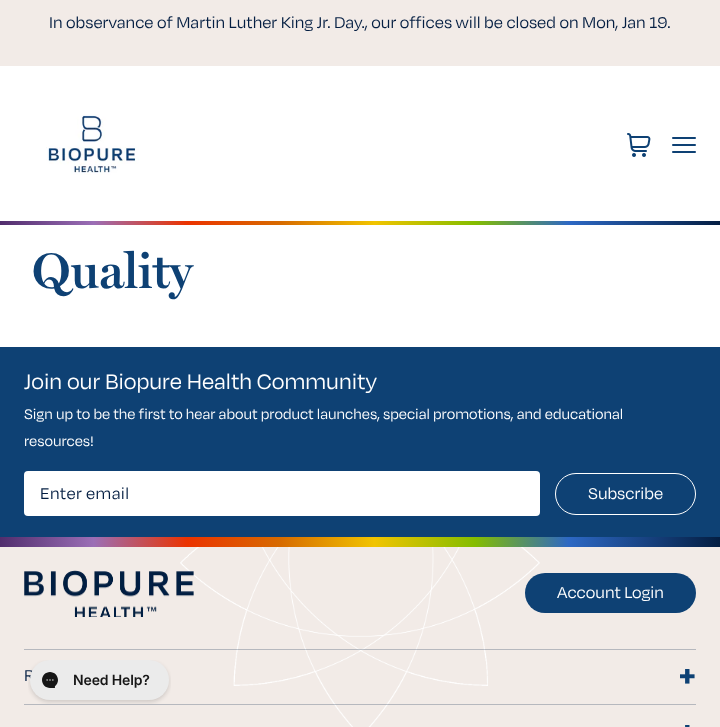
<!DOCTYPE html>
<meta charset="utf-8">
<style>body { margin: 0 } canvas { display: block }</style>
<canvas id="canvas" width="720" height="727"></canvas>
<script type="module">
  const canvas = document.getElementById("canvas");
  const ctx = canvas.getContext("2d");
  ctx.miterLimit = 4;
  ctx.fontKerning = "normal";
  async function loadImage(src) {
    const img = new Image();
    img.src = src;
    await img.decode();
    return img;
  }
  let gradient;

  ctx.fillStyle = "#ffffff";
  ctx.fillRect(0, 0, 720, 727);
  ctx.fillStyle = "#f2ebe7";
  ctx.fillRect(0, 0, 720, 66);
  ctx.font = "18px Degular";
  ctx.fillStyle = "#041e42";
  ctx.fillText("In observance of Martin Luther King Jr. Day., our offices will be closed on Mon, Jan 19.", 49, 28);
  ctx.drawImage(await loadImage("img1.png"), 46, 114, 93, 61);
  ctx.drawImage(await loadImage("img2.png"), 627, 133, 24, 24);
  ctx.drawImage(await loadImage("img3.png"), 672, 137, 24, 16);
  gradient = ctx.createLinearGradient(0, 223, 720, 223);
  gradient.addColorStop(0, "#512d6d");
  gradient.addColorStop(0.13, "#9b6eb6");
  gradient.addColorStop(0.26, "#eb3300");
  gradient.addColorStop(0.39, "#d76b00");
  gradient.addColorStop(0.52, "#f1c400");
  gradient.addColorStop(0.66, "#84bd00");
  gradient.addColorStop(0.79, "#2d68c4");
  gradient.addColorStop(1, "#041e42");
  ctx.fillStyle = gradient;
  ctx.fillRect(0, 221, 720, 4);
  ctx.font = "600 50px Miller";
  ctx.fillStyle = "#0e4174";
  ctx.fillText("Quality", 32, 288);
  ctx.fillRect(0, 347, 720, 190);
  ctx.font = "24px Degular";
  ctx.fillStyle = "#ffffff";
  ctx.fillText("Join our Biopure Health Community", 24, 389);
  ctx.font = "16px Degular";
  ctx.fillText("Sign up to be the first to hear about product launches, special promotions, and educational", 24, 419);
  ctx.fillText("resources!", 24, 446);
  ctx.beginPath();
  ctx.roundRect(24, 471, 516, 45, 4);
  ctx.fill();
  ctx.letterSpacing = "0.4px";
  ctx.font = "18px Degular";
  ctx.fillStyle = "#041e42";
  ctx.fillText("Enter email", 40, 499);
  ctx.beginPath();
  ctx.roundRect(555.5, 473.5, 140, 41, 20.5);
  ctx.strokeStyle = "#ffffff";
  ctx.stroke();
  ctx.letterSpacing = "0px";
  ctx.fillStyle = "#ffffff";
  ctx.fillText("Subscribe", 588, 499);
  ctx.fillStyle = "#f2ebe7";
  ctx.fillRect(0, 547, 720, 180);
  gradient = ctx.createLinearGradient(0, 542, 720, 542);
  gradient.addColorStop(0, "#512d6d");
  gradient.addColorStop(0.13, "#9b6eb6");
  gradient.addColorStop(0.26, "#eb3300");
  gradient.addColorStop(0.39, "#d76b00");
  gradient.addColorStop(0.52, "#f1c400");
  gradient.addColorStop(0.66, "#84bd00");
  gradient.addColorStop(0.79, "#2d68c4");
  gradient.addColorStop(1, "#041e42");
  ctx.fillStyle = gradient;
  ctx.fillRect(0, 537, 720, 10);
  ctx.drawImage(await loadImage("img4.png"), 180, 547, 360, 180);
  ctx.drawImage(await loadImage("img5.png"), 24, 570, 170, 47);
  ctx.fillStyle = "#0e4174";
  ctx.beginPath();
  ctx.roundRect(525, 573, 171, 40, 20);
  ctx.fill();
  ctx.fillStyle = "#ffffff";
  ctx.fillText("Account Login", 557, 598);
  ctx.fillStyle = "rgba(4, 30, 66, 0.25)";
  ctx.fillRect(24, 649, 672, 1);
  ctx.fillStyle = "#041e42";
  ctx.fillText("R", 24, 681);
  ctx.drawImage(await loadImage("img6.png"), 680, 669, 15, 15);
  ctx.fillStyle = "rgba(4, 30, 66, 0.25)";
  ctx.fillRect(24, 704, 672, 1);
  ctx.drawImage(await loadImage("img7.png"), 685, 725, 5, 2);
  ctx.drawImage(await loadImage("img8.png"), 28, 660, 143, 44);
</script>
